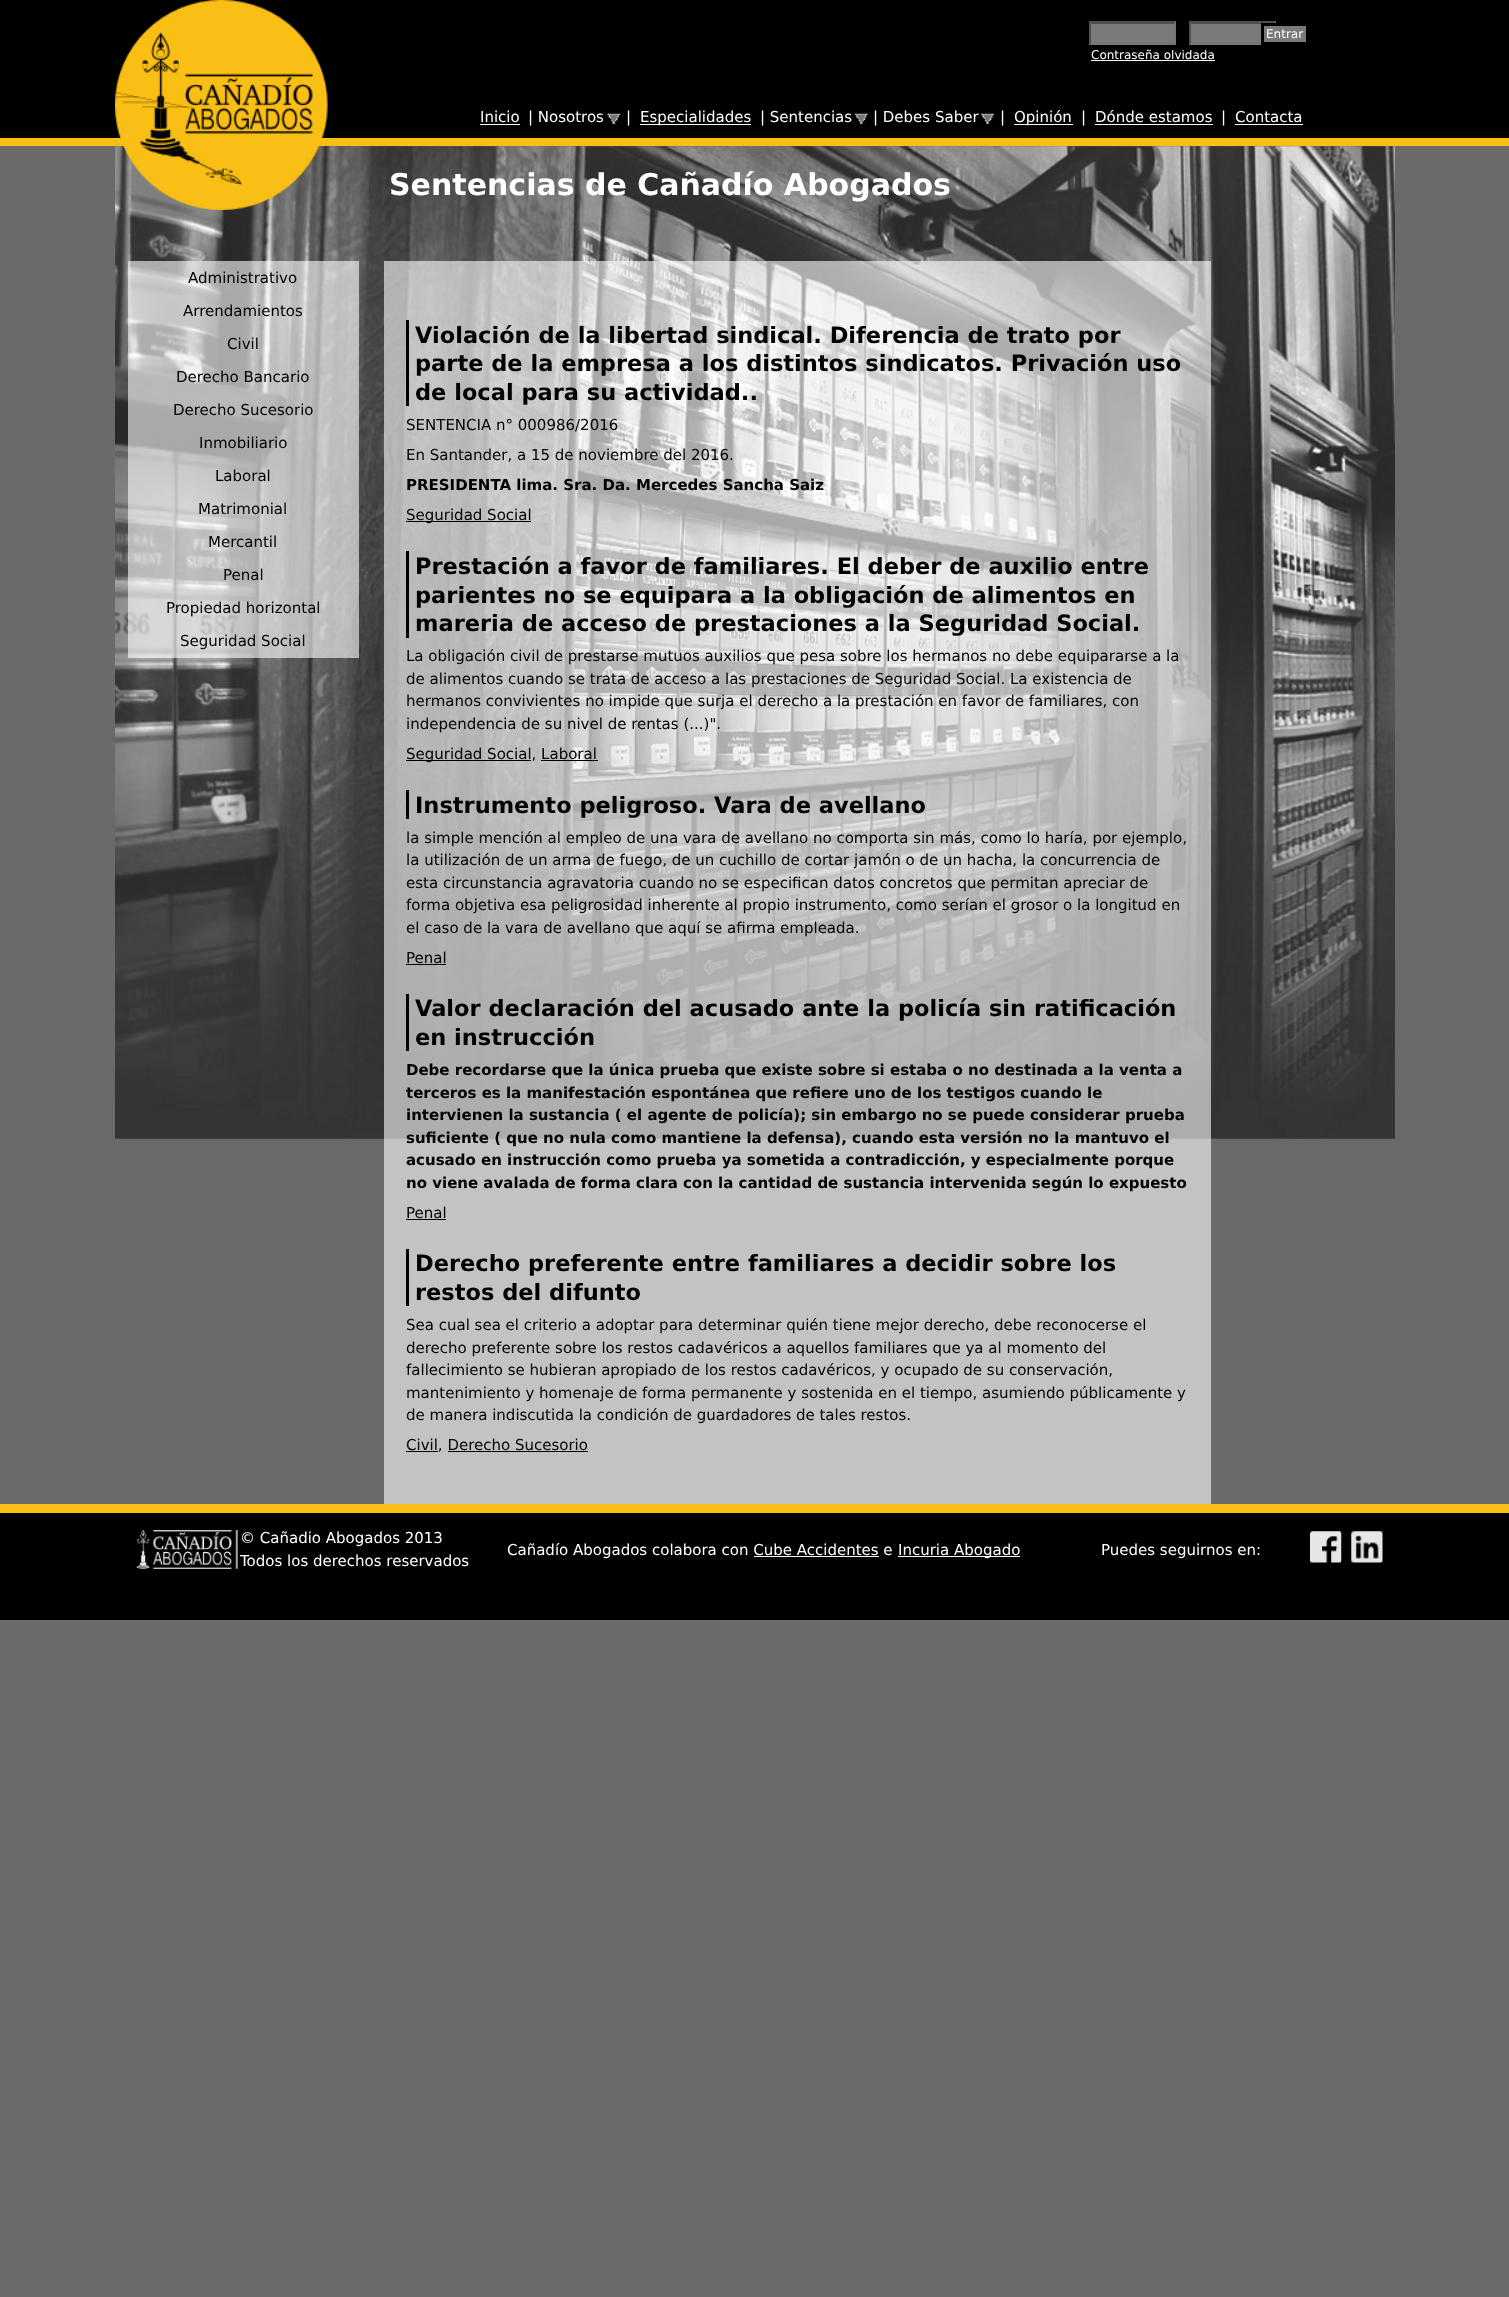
<!DOCTYPE html>
<meta charset="utf-8">
<style>body { margin: 0 } canvas { display: block }</style>
<canvas id="canvas" width="1509" height="2297"></canvas>
<script type="module">
  const canvas = document.getElementById("canvas");
  const ctx = canvas.getContext("2d");
  ctx.miterLimit = 4;
  ctx.fontKerning = "normal";
  async function loadImage(src) {
    const img = new Image();
    img.src = src;
    await img.decode();
    return img;
  }

  ctx.fillStyle = "#6a6a6a";
  ctx.fillRect(0, 0, 1509, 2297);
  ctx.fillStyle = "#000000";
  ctx.fillRect(0, 0, 1509, 138);
  ctx.fillStyle = "#fabf14";
  ctx.fillRect(0, 138, 1509, 8);
  ctx.drawImage(await loadImage("img5.png"), 115, 146, 1280, 993);
  ctx.drawImage(await loadImage("img1.png"), 115, 0, 213, 210);
  ctx.fillStyle = "#7a7a7a";
  ctx.fillRect(1089, 21, 87, 24);
  ctx.fillStyle = "#4f4f4f";
  ctx.beginPath();
  ctx.moveTo(1089, 21);
  ctx.lineTo(1176, 21);
  ctx.lineTo(1174, 24);
  ctx.lineTo(1091, 24);
  ctx.closePath();
  ctx.fill();
  ctx.fillStyle = "#767676";
  ctx.beginPath();
  ctx.moveTo(1176, 21);
  ctx.lineTo(1176, 45);
  ctx.lineTo(1174, 42.5);
  ctx.lineTo(1174, 24);
  ctx.closePath();
  ctx.fill();
  ctx.beginPath();
  ctx.moveTo(1176, 45);
  ctx.lineTo(1089, 45);
  ctx.lineTo(1091, 42);
  ctx.lineTo(1174, 42);
  ctx.closePath();
  ctx.fill();
  ctx.fillStyle = "#4f4f4f";
  ctx.beginPath();
  ctx.moveTo(1089, 45);
  ctx.lineTo(1089, 21);
  ctx.lineTo(1091, 24);
  ctx.lineTo(1091, 42.5);
  ctx.closePath();
  ctx.fill();
  ctx.fillStyle = "#7a7a7a";
  ctx.fillRect(1189, 21, 87, 24);
  ctx.fillStyle = "#4f4f4f";
  ctx.beginPath();
  ctx.moveTo(1189, 21);
  ctx.lineTo(1276, 21);
  ctx.lineTo(1274, 24);
  ctx.lineTo(1191, 24);
  ctx.closePath();
  ctx.fill();
  ctx.fillStyle = "#767676";
  ctx.beginPath();
  ctx.moveTo(1276, 21);
  ctx.lineTo(1276, 45);
  ctx.lineTo(1274, 42.5);
  ctx.lineTo(1274, 24);
  ctx.closePath();
  ctx.fill();
  ctx.beginPath();
  ctx.moveTo(1276, 45);
  ctx.lineTo(1189, 45);
  ctx.lineTo(1191, 42);
  ctx.lineTo(1274, 42);
  ctx.closePath();
  ctx.fill();
  ctx.fillStyle = "#4f4f4f";
  ctx.beginPath();
  ctx.moveTo(1189, 45);
  ctx.lineTo(1189, 21);
  ctx.lineTo(1191, 24);
  ctx.lineTo(1191, 42.5);
  ctx.closePath();
  ctx.fill();
  ctx.fillStyle = "#7a7a7a";
  ctx.fillRect(1274, 26, 32, 16);
  ctx.strokeStyle = "#000000";
  ctx.lineWidth = 3;
  ctx.strokeRect(1262.5, 24.5, 45, 19);
  ctx.font = "12px DejaVu Sans";
  ctx.fillStyle = "#ffffff";
  ctx.fillText("Entrar", 1266, 38);
  ctx.fillText("Contraseña olvidada", 1091, 59);
  ctx.fillRect(1091, 60, 124, 1);
  ctx.font = "15px DejaVu Sans";
  ctx.fillText("Inicio", 480, 122);
  ctx.fillRect(480, 124, 40, 1);
  ctx.fillText("| Nosotros", 528, 122);
  ctx.drawImage(await loadImage("img2.png"), 607, 113, 14, 11);
  ctx.fillText("|", 626, 122);
  ctx.fillRect(640, 124, 111, 1);
  ctx.fillText("Especialidades", 640, 122);
  ctx.fillText("| Sentencias", 760, 122);
  ctx.drawImage(await loadImage("img3.png"), 854, 113, 14, 11);
  ctx.fillText("| Debes Saber", 873, 122);
  ctx.drawImage(await loadImage("img4.png"), 981, 113, 13, 11);
  ctx.fillText("|", 1000, 122);
  ctx.fillRect(1014, 124, 59, 1);
  ctx.fillText("Opinión", 1014, 122);
  ctx.fillText("|", 1081, 122);
  ctx.fillText("Dónde estamos", 1095, 122);
  ctx.fillRect(1095, 124, 118, 1);
  ctx.fillText("|", 1221, 122);
  ctx.fillText("Contacta", 1235, 122);
  ctx.fillRect(1235, 124, 68, 1);
  ctx.fillStyle = "rgba(255, 255, 255, 0.6)";
  ctx.fillRect(128, 261, 231, 34);
  ctx.fillStyle = "#000000";
  ctx.fillText("Administrativo", 188, 283);
  ctx.fillStyle = "rgba(255, 255, 255, 0.6)";
  ctx.fillRect(128, 295, 231, 33);
  ctx.fillStyle = "#000000";
  ctx.fillText("Arrendamientos", 183, 316);
  ctx.fillStyle = "rgba(255, 255, 255, 0.6)";
  ctx.fillRect(128, 328, 231, 33);
  ctx.fillStyle = "#000000";
  ctx.fillText("Civil", 227, 349);
  ctx.fillStyle = "rgba(255, 255, 255, 0.6)";
  ctx.fillRect(128, 361, 231, 33);
  ctx.fillStyle = "#000000";
  ctx.fillText("Derecho Bancario", 176, 382);
  ctx.fillStyle = "rgba(255, 255, 255, 0.6)";
  ctx.fillRect(128, 394, 231, 32);
  ctx.fillStyle = "#000000";
  ctx.fillText("Derecho Sucesorio", 173, 415);
  ctx.fillStyle = "rgba(255, 255, 255, 0.6)";
  ctx.fillRect(128, 426, 231, 34);
  ctx.fillStyle = "#000000";
  ctx.fillText("Inmobiliario", 199, 448);
  ctx.fillStyle = "rgba(255, 255, 255, 0.6)";
  ctx.fillRect(128, 460, 231, 33);
  ctx.fillStyle = "#000000";
  ctx.fillText("Laboral", 215, 481);
  ctx.fillStyle = "rgba(255, 255, 255, 0.6)";
  ctx.fillRect(128, 493, 231, 33);
  ctx.fillStyle = "#000000";
  ctx.fillText("Matrimonial", 198, 514);
  ctx.fillStyle = "rgba(255, 255, 255, 0.6)";
  ctx.fillRect(128, 526, 231, 33);
  ctx.fillStyle = "#000000";
  ctx.fillText("Mercantil", 208, 547);
  ctx.fillStyle = "rgba(255, 255, 255, 0.6)";
  ctx.fillRect(128, 559, 231, 32);
  ctx.fillStyle = "#000000";
  ctx.fillText("Penal", 223, 580);
  ctx.fillStyle = "rgba(255, 255, 255, 0.6)";
  ctx.fillRect(128, 591, 231, 34);
  ctx.fillStyle = "#000000";
  ctx.fillText("Propiedad horizontal", 166, 613);
  ctx.fillStyle = "rgba(255, 255, 255, 0.6)";
  ctx.fillRect(128, 625, 231, 33);
  ctx.fillStyle = "#000000";
  ctx.fillText("Seguridad Social", 180, 646);
  ctx.font = "bold 30px DejaVu Sans";
  ctx.fillStyle = "#ffffff";
  ctx.fillText("Sentencias de Cañadío Abogados", 389, 195);
  ctx.fillStyle = "rgba(255, 255, 255, 0.6)";
  ctx.fillRect(384, 261, 827, 37);
  ctx.fillRect(384, 298, 827, 1206);
  ctx.fillStyle = "#000000";
  ctx.fillRect(406, 320, 3, 86);
  ctx.font = "bold 22.5px DejaVu Sans";
  ctx.fillText("Violación de la libertad sindical. Diferencia de trato por", 415, 343);
  ctx.fillText("parte de la empresa a los distintos sindicatos. Privación uso", 415, 371);
  ctx.fillText("de local para su actividad..", 415, 400);
  ctx.font = "15px DejaVu Sans";
  ctx.fillText("SENTENCIA n° 000986/2016", 406, 430);
  ctx.fillText("En Santander, a 15 de noviembre del 2016.", 406, 460);
  ctx.font = "bold 15px DejaVu Sans";
  ctx.fillText("PRESIDENTA lima. Sra. Da. Mercedes Sancha Saiz", 406, 490);
  ctx.fillRect(406, 521, 125, 1);
  ctx.font = "15px DejaVu Sans";
  ctx.fillText("Seguridad Social", 406, 520);
  ctx.fillRect(406, 551, 3, 87);
  ctx.font = "bold 22.5px DejaVu Sans";
  ctx.fillText("Prestación a favor de familiares. El deber de auxilio entre", 415, 574);
  ctx.fillText("parientes no se equipara a la obligación de alimentos en", 415, 603);
  ctx.fillText("mareria de acceso de prestaciones a la Seguridad Social.", 415, 631);
  ctx.font = "15px DejaVu Sans";
  ctx.fillText("La obligación civil de prestarse mutuos auxilios que pesa sobre los hermanos no debe equipararse a la", 406, 661);
  ctx.fillText("de alimentos cuando se trata de acceso a las prestaciones de Seguridad Social. La existencia de", 406, 684);
  ctx.fillText("hermanos convivientes no impide que surja el derecho a la prestación en favor de familiares, con", 406, 706);
  ctx.fillText("independencia de su nivel de rentas (...)\".", 406, 729);
  ctx.fillRect(406, 760, 125, 1);
  ctx.fillText("Seguridad Social, Laboral", 406, 759);
  ctx.fillRect(541, 760, 57, 1);
  ctx.fillRect(406, 790, 3, 29);
  ctx.font = "bold 22.5px DejaVu Sans";
  ctx.fillText("Instrumento peligroso. Vara de avellano", 415, 813);
  ctx.font = "15px DejaVu Sans";
  ctx.fillText("la simple mención al empleo de una vara de avellano no comporta sin más, como lo haría, por ejemplo,", 406, 843);
  ctx.fillText("la utilización de un arma de fuego, de un cuchillo de cortar jamón o de un hacha, la concurrencia de", 406, 865);
  ctx.fillText("esta circunstancia agravatoria cuando no se especifican datos concretos que permitan apreciar de", 406, 888);
  ctx.fillText("forma objetiva esa peligrosidad inherente al propio instrumento, como serían el grosor o la longitud en", 406, 910);
  ctx.fillText("el caso de la vara de avellano que aquí se afirma empleada.", 406, 933);
  ctx.fillText("Penal", 406, 963);
  ctx.fillRect(406, 964, 40, 1);
  ctx.fillRect(406, 994, 3, 57);
  ctx.font = "bold 22.5px DejaVu Sans";
  ctx.fillText("Valor declaración del acusado ante la policía sin ratificación", 415, 1016);
  ctx.fillText("en instrucción", 415, 1045);
  ctx.font = "bold 15px DejaVu Sans";
  ctx.fillText("Debe recordarse que la única prueba que existe sobre si estaba o no destinada a la venta a", 406, 1075);
  ctx.fillText("terceros es la manifestación espontánea que refiere uno de los testigos cuando le", 406, 1098);
  ctx.fillText("intervienen la sustancia ( el agente de policía); sin embargo no se puede considerar prueba", 406, 1120);
  ctx.fillText("suficiente ( que no nula como mantiene la defensa), cuando esta versión no la mantuvo el", 406, 1143);
  ctx.fillText("acusado en instrucción como prueba ya sometida a contradicción, y especialmente porque", 406, 1165);
  ctx.fillText("no viene avalada de forma clara con la cantidad de sustancia intervenida según lo expuesto", 406, 1188);
  ctx.font = "15px DejaVu Sans";
  ctx.fillText("Penal", 406, 1218);
  ctx.fillRect(406, 1219, 40, 1);
  ctx.fillRect(406, 1249, 3, 57);
  ctx.font = "bold 22.5px DejaVu Sans";
  ctx.fillText("Derecho preferente entre familiares a decidir sobre los", 415, 1271);
  ctx.fillText("restos del difunto", 415, 1300);
  ctx.font = "15px DejaVu Sans";
  ctx.fillText("Sea cual sea el criterio a adoptar para determinar quién tiene mejor derecho, debe reconocerse el", 406, 1330);
  ctx.fillText("derecho preferente sobre los restos cadavéricos a aquellos familiares que ya al momento del", 406, 1353);
  ctx.fillText("fallecimiento se hubieran apropiado de los restos cadavéricos, y ocupado de su conservación,", 406, 1375);
  ctx.fillText("mantenimiento y homenaje de forma permanente y sostenida en el tiempo, asumiendo públicamente y", 406, 1398);
  ctx.fillText("de manera indiscutida la condición de guardadores de tales restos.", 406, 1420);
  ctx.fillRect(406, 1451, 32, 1);
  ctx.fillText("Civil, Derecho Sucesorio", 406, 1450);
  ctx.fillRect(448, 1451, 140, 1);
  ctx.fillRect(0, 1513, 1509, 107);
  ctx.fillStyle = "#fabf14";
  ctx.fillRect(0, 1504, 1509, 9);
  ctx.drawImage(await loadImage("img6.png"), 136, 1530, 102, 39);
  ctx.fillStyle = "#ffffff";
  ctx.fillText("© Cañadio Abogados 2013", 240, 1543);
  ctx.fillText("Todos los derechos reservados", 240, 1566);
  ctx.fillText("Cañadío Abogados colabora con Cube Accidentes e", 507, 1555);
  ctx.fillRect(898, 1556, 122, 1);
  ctx.fillText("Incuria Abogado", 898, 1555);
  ctx.fillRect(754, 1556, 125, 1);
  ctx.fillText("Puedes seguirnos en:", 1101, 1555);
  ctx.drawImage(await loadImage("img7.png"), 1310, 1531, 32, 32);
  ctx.drawImage(await loadImage("img8.png"), 1351, 1531, 32, 32);
</script>
